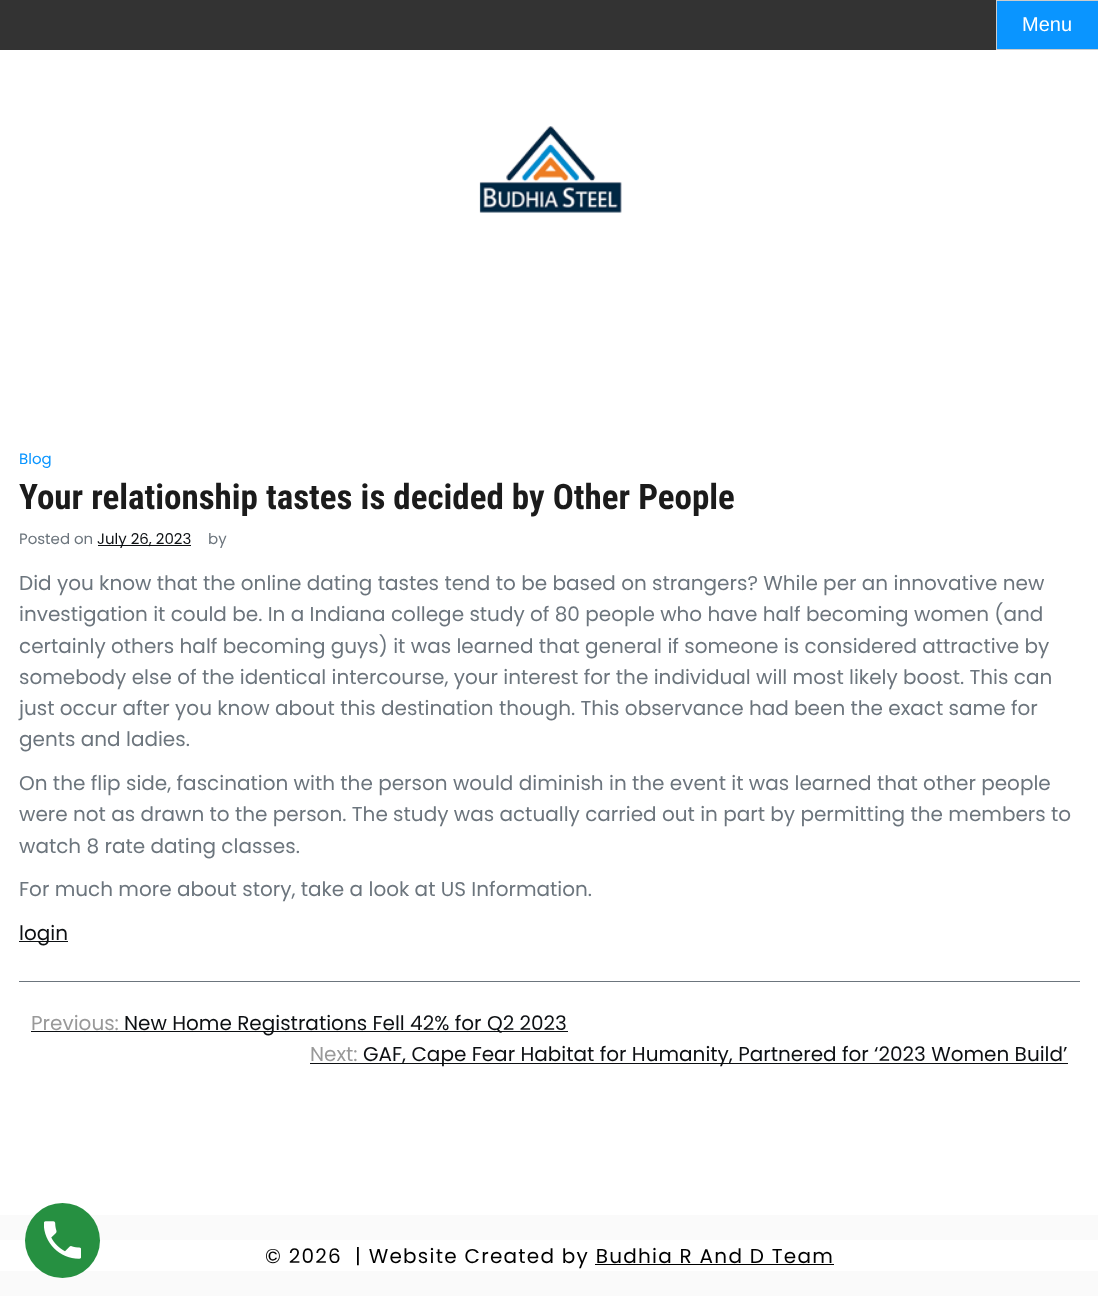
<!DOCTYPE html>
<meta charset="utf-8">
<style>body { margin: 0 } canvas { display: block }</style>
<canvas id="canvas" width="1098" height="1302"></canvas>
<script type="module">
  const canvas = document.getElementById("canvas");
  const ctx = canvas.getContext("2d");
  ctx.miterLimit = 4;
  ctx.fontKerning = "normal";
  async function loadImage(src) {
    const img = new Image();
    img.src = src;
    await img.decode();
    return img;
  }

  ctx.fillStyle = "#ffffff";
  ctx.fillRect(0, 0, 1098, 1302);
  ctx.fillStyle = "#333333";
  ctx.fillRect(0, 0, 996, 50);
  ctx.fillStyle = "#0a95ff";
  ctx.beginPath();
  ctx.rect(996.5, 0.5, 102, 49);
  ctx.fill();
  ctx.strokeStyle = "#cccccc";
  ctx.stroke();
  ctx.font = "20px Liberation Sans";
  ctx.fillStyle = "#ffffff";
  ctx.fillText("Menu", 1022, 31);
  ctx.drawImage(await loadImage("img1.png"), 479, 126, 143, 87);
  ctx.font = "15px Poppins";
  ctx.fillStyle = "#0a95ff";
  ctx.fillText("Blog", 19, 464);
  ctx.font = "bold 35px Roboto Condensed";
  ctx.fillStyle = "#1b1b1b";
  ctx.fillText("Your relationship tastes is decided by Other People", 19, 509);
  ctx.font = "15px Poppins";
  ctx.fillStyle = "#6c757d";
  ctx.fillText("Posted on", 19, 544);
  ctx.fillStyle = "#0d1013";
  ctx.fillRect(98, 545, 93, 1);
  ctx.fillText("July 26, 2023", 97, 544);
  ctx.fillStyle = "#6c757d";
  ctx.fillText("by", 208, 544);
  ctx.font = "20px Poppins";
  ctx.fillText("Did you know that the online dating tastes tend to be based on strangers? While per an innovative new", 19, 590);
  ctx.fillText("investigation it could be. In a Indiana college study of 80 people who have half becoming women (and", 19, 621);
  ctx.fillText("certainly others half becoming guys) it was learned that general if someone is considered attractive by", 19, 653);
  ctx.fillText("somebody else of the identical intercourse, your interest for the individual will most likely boost. This can", 19, 684);
  ctx.fillText("just occur after you know about this destination though. This observance had been the exact same for", 19, 715);
  ctx.fillText("gents and ladies.", 19, 746);
  ctx.fillText("On the flip side, fascination with the person would diminish in the event it was learned that other people", 19, 790);
  ctx.fillText("were not as drawn to the person. The study was actually carried out in part by permitting the members to", 19, 821);
  ctx.fillText("watch 8 rate dating classes.", 19, 853);
  ctx.fillText("For much more about story, take a look at US Information.", 19, 896);
  ctx.fillStyle = "#0d1013";
  ctx.fillRect(19, 941, 49, 1);
  ctx.fillText("login", 19, 940);
  ctx.fillStyle = "#6c757d";
  ctx.fillRect(19, 981, 1061, 1);
  ctx.fillStyle = "#999999";
  ctx.fillText("Previous:", 31, 1030);
  ctx.fillStyle = "#0d1013";
  ctx.fillRect(31, 1031, 537, 1);
  ctx.fillText("New Home Registrations Fell 42% for Q2 2023", 124, 1030);
  ctx.fillStyle = "#999999";
  ctx.fillText("Next:", 310, 1061);
  ctx.fillStyle = "#0d1013";
  ctx.fillRect(310, 1063, 758, 1);
  ctx.fillText("GAF, Cape Fear Habitat for Humanity, Partnered for ‘2023 Women Build’", 363, 1061);
  ctx.fillStyle = "#fafafa";
  ctx.fillRect(0, 1215, 1098, 81);
  ctx.fillStyle = "#ffffff";
  ctx.fillRect(0, 1240, 1098, 31);
  ctx.fillStyle = "#269041";
  ctx.beginPath();
  ctx.arc(62.5, 1240.5, 37.5, 0, Math.PI * 2);
  ctx.fill();
  ctx.drawImage(await loadImage("img2.png"), 44, 1221, 37, 38);
  ctx.letterSpacing = "1.25px";
  ctx.fillStyle = "#000000";
  ctx.fillText("© 2026", 265, 1263);
  ctx.fillText("| Website Created by Budhia R And D Team", 355, 1263);
  ctx.fillRect(595, 1264, 239, 1);
</script>
